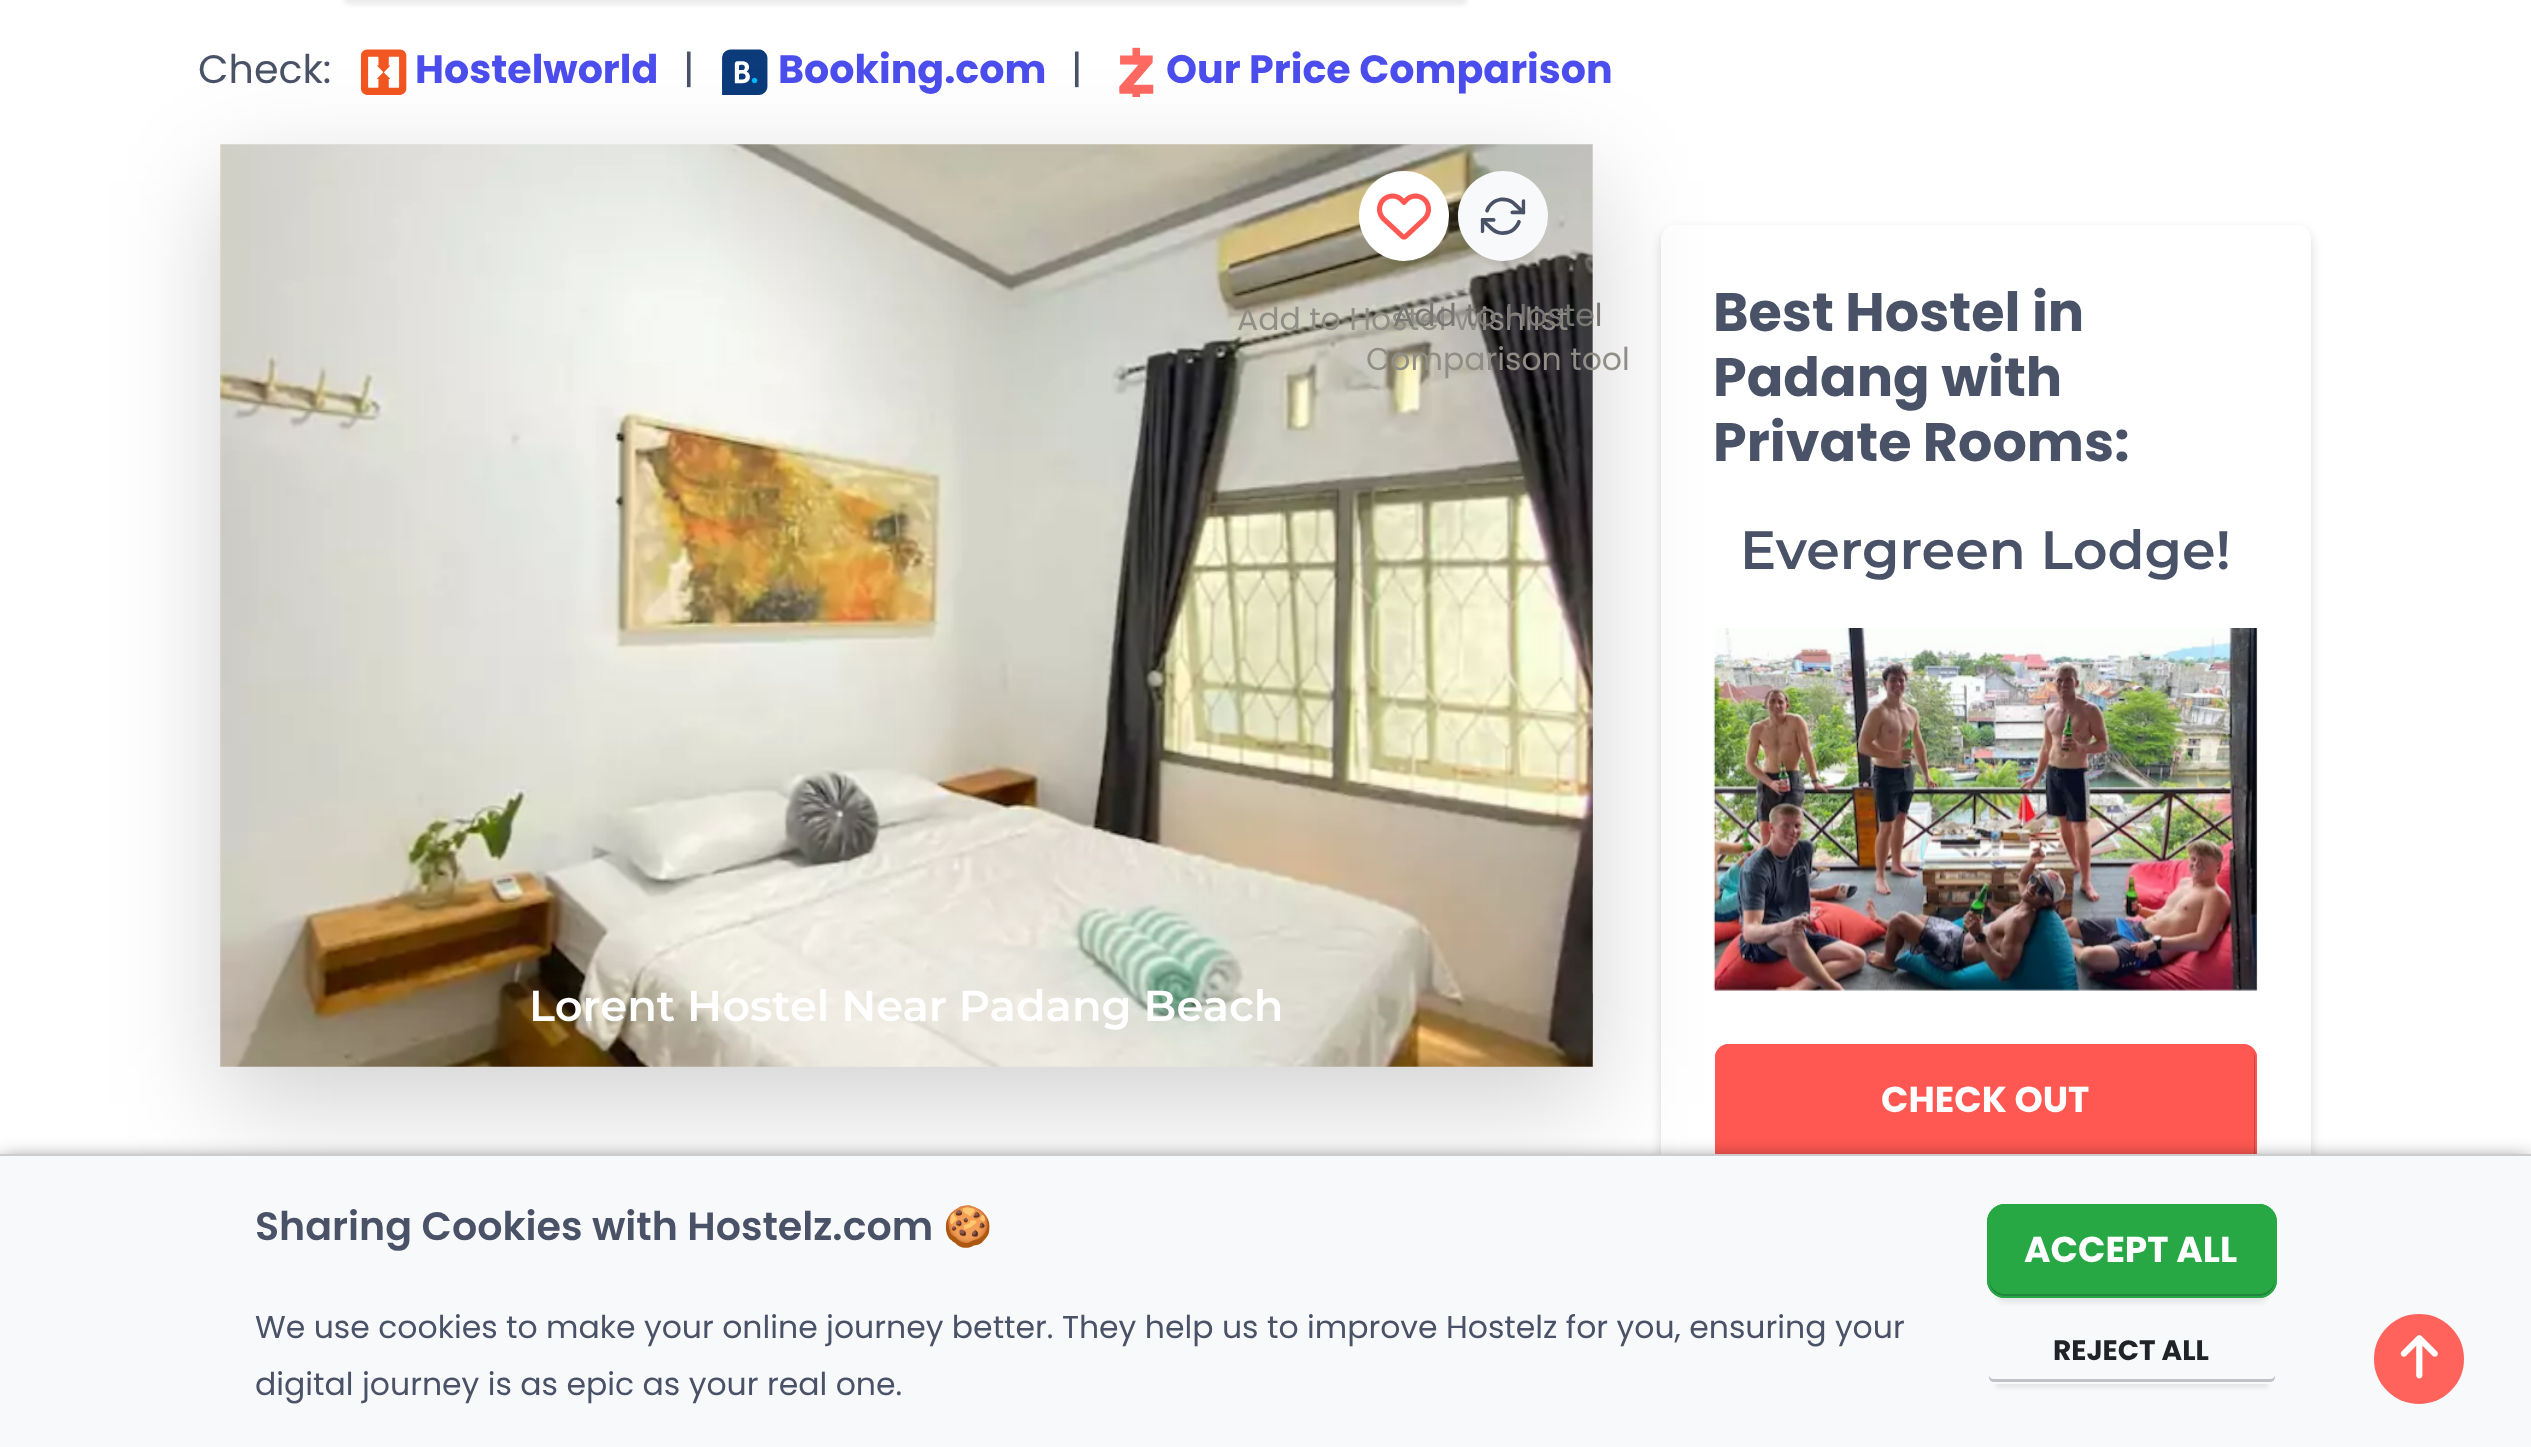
<!DOCTYPE html>
<meta charset="utf-8">
<style>body { margin: 0 } canvas { display: block }</style>
<canvas id="canvas" width="2531" height="1447"></canvas>
<script type="module">
  const canvas = document.getElementById("canvas");
  const ctx = canvas.getContext("2d");
  ctx.miterLimit = 4;
  ctx.fontKerning = "normal";
  async function loadImage(src) {
    const img = new Image();
    img.src = src;
    await img.decode();
    return img;
  }

  ctx.fillStyle = "#ffffff";
  ctx.fillRect(0, 0, 2531, 1447);
  ctx.fillStyle = "rgba(14, 14, 44, 0.08)";
  ctx.filter = "blur(2px)";
  ctx.beginPath();
  ctx.roundRect(344, -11, 1123, 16, 5);
  ctx.fill();
  ctx.filter = "none";
  ctx.font = "39.6px Poppins";
  ctx.fillStyle = "#4a5268";
  ctx.fillText("Check:", 198, 83);
  ctx.drawImage(await loadImage("img1.png"), 360, 49, 47, 46);
  ctx.font = "bold 39.6px Poppins";
  ctx.fillStyle = "#4b4ded";
  ctx.fillText("Hostelworld", 415, 83);
  ctx.font = "39.6px Poppins";
  ctx.fillStyle = "#4a5268";
  ctx.fillText("|", 683, 83);
  ctx.drawImage(await loadImage("img2.png"), 722, 49, 46, 46);
  ctx.font = "bold 39.6px Poppins";
  ctx.fillStyle = "#4b4ded";
  ctx.fillText("Booking.com", 778, 83);
  ctx.font = "39.6px Poppins";
  ctx.fillStyle = "#4a5268";
  ctx.fillText("|", 1071, 83);
  ctx.drawImage(await loadImage("img3.png"), 1119, 47, 35, 50);
  ctx.font = "bold 39.6px Poppins";
  ctx.fillStyle = "#4b4ded";
  ctx.fillText("Our Price Comparison", 1166, 83);
  ctx.fillStyle = "rgba(0, 0, 0, 0.18)";
  ctx.filter = "blur(54px)";
  ctx.beginPath();
  ctx.rect(221, 180, 1372, 923);
  ctx.fill();
  ctx.filter = "none";
  ctx.drawImage(await loadImage("img4.png"), 220, 144, 1373, 923);
  ctx.drawImage(await loadImage("img5.png"), 1592, 145, 1, 922);
  ctx.fillStyle = "rgba(14, 14, 44, 0.07)";
  ctx.filter = "blur(2px)";
  ctx.beginPath();
  ctx.roundRect(1467, 194, 72, 72, 36);
  ctx.fill();
  ctx.filter = "none";
  ctx.fillStyle = "#f8f9fa";
  ctx.beginPath();
  ctx.arc(1503, 216, 45, 0, Math.PI * 2);
  ctx.fill();
  ctx.drawImage(await loadImage("img6.png"), 1480, 197, 46, 38);
  ctx.font = "31.5px Poppins";
  ctx.fillStyle = "#8f8d85";
  ctx.fillText("Add to Hostel wishlist", 1237, 330);
  ctx.fillStyle = "#787773";
  ctx.fillText("Add to Hostel", 1393, 326);
  ctx.fillStyle = "#8f8d85";
  ctx.fillText("Comparison tool", 1366, 370);
  ctx.fillStyle = "rgba(14, 14, 44, 0.08)";
  ctx.filter = "blur(2px)";
  ctx.beginPath();
  ctx.roundRect(1368, 194, 72, 72, 36);
  ctx.fill();
  ctx.filter = "none";
  ctx.fillStyle = "#ffffff";
  ctx.beginPath();
  ctx.arc(1404, 216, 45, 0, Math.PI * 2);
  ctx.fill();
  ctx.drawImage(await loadImage("img7.png"), 1377, 193, 54, 47);
  ctx.font = "600 43.25px Montserrat";
  ctx.fillText("Lorent Hostel Near Padang Beach", 529, 1021);
  ctx.save();
  ctx.beginPath();
  ctx.moveTo(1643, 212);
  ctx.lineTo(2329, 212);
  ctx.lineTo(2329, 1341);
  ctx.lineTo(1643, 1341);
  ctx.closePath();
  ctx.moveTo(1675, 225);
  ctx.lineTo(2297, 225);
  ctx.bezierCurveTo(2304.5, 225, 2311, 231.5, 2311, 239);
  ctx.lineTo(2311, 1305);
  ctx.bezierCurveTo(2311, 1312.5, 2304.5, 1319, 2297, 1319);
  ctx.lineTo(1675, 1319);
  ctx.bezierCurveTo(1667.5, 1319, 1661, 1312.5, 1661, 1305);
  ctx.lineTo(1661, 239);
  ctx.bezierCurveTo(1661, 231.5, 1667.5, 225, 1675, 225);
  ctx.closePath();
  ctx.clip("evenodd");
  ctx.fillStyle = "rgba(0, 0, 0, 0.15)";
  ctx.filter = "blur(5.5px)";
  ctx.beginPath();
  ctx.roundRect(1661, 230, 650, 1093, 14);
  ctx.fill();
  ctx.filter = "none";
  ctx.restore();
  ctx.font = "bold 54px Poppins";
  ctx.fillStyle = "#4a5268";
  ctx.fillText("Best Hostel in", 1713, 331);
  ctx.fillText("Padang with", 1713, 396);
  ctx.fillText("Private Rooms:", 1713, 461);
  ctx.font = "600 54px Montserrat";
  ctx.fillText("Evergreen Lodge!", 1740, 569);
  ctx.drawImage(await loadImage("img8.png"), 1713, 628, 545, 363);
  ctx.fillStyle = "#ff5852";
  ctx.beginPath();
  ctx.roundRect(1715, 1044, 542, 221, 14);
  ctx.fill();
  ctx.fillStyle = "#c54649";
  ctx.beginPath();
  ctx.moveTo(1717, 1249);
  ctx.lineTo(1717, 1251);
  ctx.bezierCurveTo(1717, 1257, 1722, 1262, 1728, 1262);
  ctx.lineTo(2244, 1262);
  ctx.bezierCurveTo(2250, 1262, 2255, 1257, 2255, 1251);
  ctx.lineTo(2255, 1057);
  ctx.bezierCurveTo(2255, 1055, 2254, 1053, 2253, 1051);
  ctx.lineTo(2254, 1055);
  ctx.lineTo(2254, 1249);
  ctx.bezierCurveTo(2254, 1255, 2249, 1260, 2243, 1260);
  ctx.lineTo(1728, 1260);
  ctx.bezierCurveTo(1722, 1260, 1717, 1255, 1717, 1249);
  ctx.closePath();
  ctx.fill();
  ctx.beginPath();
  ctx.roundRect(1716, 1045, 540, 219, 13);
  ctx.strokeStyle = "#ff5852";
  ctx.lineWidth = 2;
  ctx.stroke();
  ctx.font = "bold 36px Poppins";
  ctx.fillStyle = "#ffffff";
  ctx.fillText("CHECK OUT", 1881, 1112);
  ctx.fillStyle = "rgba(0, 0, 0, 0.8)";
  ctx.filter = "blur(11px)";
  ctx.beginPath();
  ctx.rect(0, 1163, 2531, 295);
  ctx.fill();
  ctx.filter = "none";
  ctx.fillStyle = "#f8f9fa";
  ctx.fillRect(0, 1156, 2531, 291);
  ctx.fillStyle = "#cccccc";
  ctx.fillRect(0, 1154, 2531, 2);
  ctx.font = "600 39.6px Poppins";
  ctx.fillStyle = "#4a5268";
  ctx.fillText("Sharing Cookies with Hostelz.com", 255, 1240);
  ctx.font = "bold 39.6px Noto Color Emoji";
  ctx.fillText("🍪", 943, 1240);
  ctx.font = "31.5px Poppins";
  ctx.fillText("We use cookies to make your online journey better. They help us to improve Hostelz for you, ensuring your", 255, 1338);
  ctx.fillText("digital journey is as epic as your real one.", 255, 1395);
  ctx.fillStyle = "rgba(14, 14, 44, 0.08)";
  ctx.filter = "blur(2px)";
  ctx.beginPath();
  ctx.roundRect(1996, 1226, 272, 77, 9);
  ctx.fill();
  ctx.filter = "none";
  ctx.fillStyle = "#28a745";
  ctx.beginPath();
  ctx.roundRect(1987, 1204, 290, 94, 18);
  ctx.fill();
  ctx.fillStyle = "#22823f";
  ctx.beginPath();
  ctx.moveTo(1989, 1278);
  ctx.lineTo(1989, 1280);
  ctx.bezierCurveTo(1989, 1289, 1996, 1296, 2005, 1296);
  ctx.lineTo(2259, 1296);
  ctx.bezierCurveTo(2268, 1296, 2275, 1289, 2275, 1280);
  ctx.lineTo(2275, 1278);
  ctx.bezierCurveTo(2275, 1287, 2268, 1294, 2259, 1294);
  ctx.lineTo(2005, 1294);
  ctx.bezierCurveTo(1996, 1294, 1989, 1287, 1989, 1278);
  ctx.closePath();
  ctx.fill();
  ctx.beginPath();
  ctx.roundRect(1988, 1205, 288, 92, 17);
  ctx.strokeStyle = "#28a745";
  ctx.stroke();
  ctx.font = "bold 36px Poppins";
  ctx.fillStyle = "#ffffff";
  ctx.fillText("ACCEPT ALL", 2024, 1262);
  ctx.save();
  ctx.beginPath();
  ctx.moveTo(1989, 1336);
  ctx.lineTo(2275, 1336);
  ctx.lineTo(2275, 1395);
  ctx.lineTo(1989, 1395);
  ctx.closePath();
  ctx.moveTo(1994, 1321);
  ctx.lineTo(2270, 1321);
  ctx.bezierCurveTo(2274, 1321, 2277, 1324, 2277, 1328);
  ctx.lineTo(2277, 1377);
  ctx.bezierCurveTo(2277, 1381, 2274, 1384, 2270, 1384);
  ctx.lineTo(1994, 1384);
  ctx.bezierCurveTo(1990, 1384, 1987, 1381, 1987, 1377);
  ctx.lineTo(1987, 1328);
  ctx.bezierCurveTo(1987, 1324, 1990, 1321, 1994, 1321);
  ctx.closePath();
  ctx.clip("evenodd");
  ctx.fillStyle = "rgba(14, 14, 44, 0.08)";
  ctx.filter = "blur(2px)";
  ctx.beginPath();
  ctx.rect(1996, 1343, 272, 45);
  ctx.fill();
  ctx.filter = "none";
  ctx.restore();
  ctx.fillStyle = "#c0c1c9";
  ctx.beginPath();
  ctx.moveTo(1989, 1374);
  ctx.bezierCurveTo(1989, 1378, 1989, 1382, 1994, 1382);
  ctx.lineTo(2270, 1382);
  ctx.bezierCurveTo(2275, 1382, 2275, 1378, 2275, 1374);
  ctx.bezierCurveTo(2275, 1377, 2273, 1379, 2270, 1379);
  ctx.lineTo(1994, 1379);
  ctx.bezierCurveTo(1991, 1379, 1989, 1377, 1989, 1374);
  ctx.closePath();
  ctx.fill();
  ctx.font = "bold 28px Poppins";
  ctx.fillStyle = "#202429";
  ctx.fillText("REJECT ALL", 2053, 1360);
  ctx.fillStyle = "#ff635c";
  ctx.beginPath();
  ctx.arc(2419, 1359, 44, 0, Math.PI * 2);
  ctx.fill();
  ctx.strokeStyle = "#ff635c";
  ctx.stroke();
  ctx.drawImage(await loadImage("img9.png"), 2400, 1335, 38, 44);
</script>
